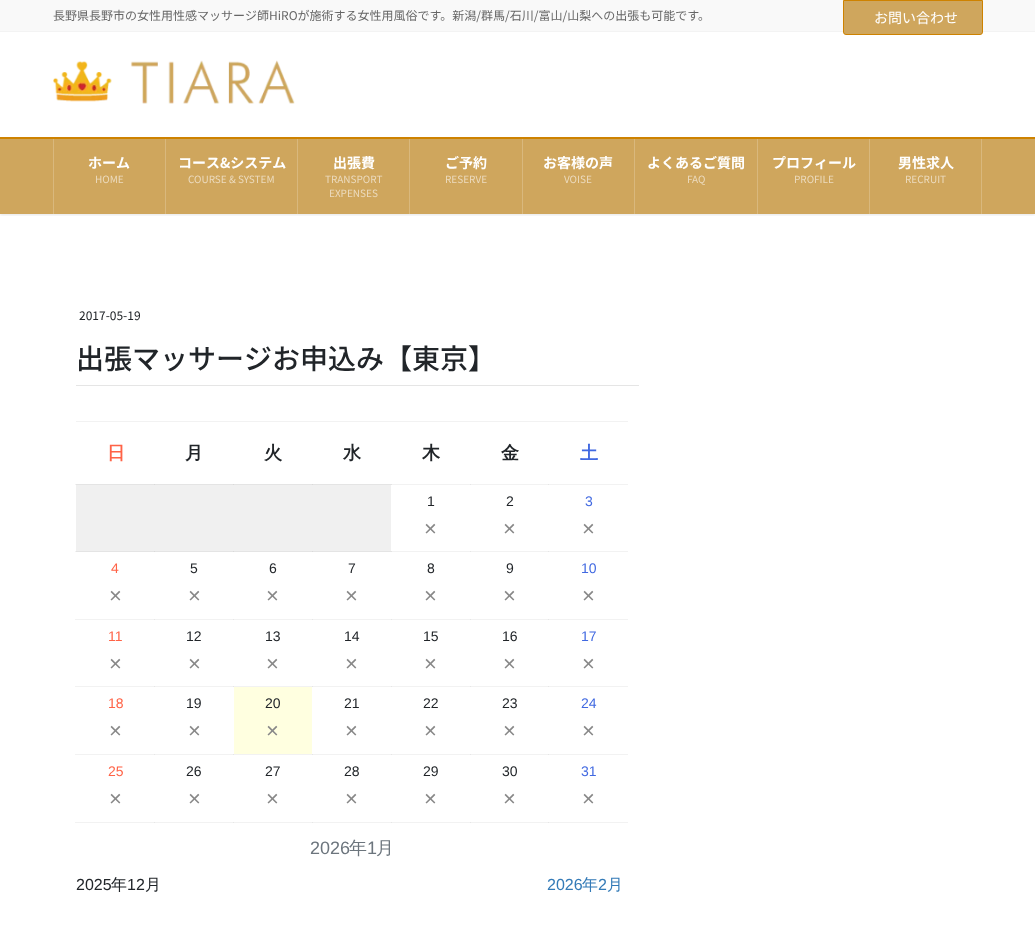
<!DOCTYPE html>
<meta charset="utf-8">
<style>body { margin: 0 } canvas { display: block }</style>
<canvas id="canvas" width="1035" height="937"></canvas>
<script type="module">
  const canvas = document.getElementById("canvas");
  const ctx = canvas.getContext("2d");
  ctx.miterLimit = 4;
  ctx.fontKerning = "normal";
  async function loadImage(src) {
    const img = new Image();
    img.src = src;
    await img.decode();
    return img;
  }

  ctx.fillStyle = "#ffffff";
  ctx.fillRect(0, 0, 1035, 937);
  ctx.fillStyle = "#f2f2f2";
  ctx.fillRect(75, 484, 1, 1);
  ctx.fillRect(391, 484, 237, 1);
  ctx.fillStyle = "#e6e6e6";
  ctx.fillRect(470, 484, 1, 1);
  ctx.fillStyle = "#f2f2f2";
  ctx.fillRect(75, 551, 1, 1);
  ctx.fillRect(391, 551, 237, 1);
  ctx.fillStyle = "#e6e6e6";
  ctx.fillRect(470, 551, 1, 1);
  ctx.fillStyle = "#f2f2f2";
  ctx.fillRect(75, 619, 553, 1);
  ctx.fillStyle = "#e6e6e6";
  ctx.fillRect(154, 619, 1, 1);
  ctx.fillRect(233, 619, 1, 1);
  ctx.fillRect(312, 619, 1, 1);
  ctx.fillRect(391, 619, 1, 1);
  ctx.fillRect(470, 619, 1, 1);
  ctx.fillStyle = "#f2f2f2";
  ctx.fillRect(75, 686, 553, 1);
  ctx.fillStyle = "#e6e6e6";
  ctx.fillRect(154, 686, 1, 1);
  ctx.fillRect(233, 686, 1, 1);
  ctx.fillRect(312, 686, 1, 1);
  ctx.fillRect(391, 686, 1, 1);
  ctx.fillRect(470, 686, 1, 1);
  ctx.fillStyle = "#f2f2f2";
  ctx.fillRect(75, 754, 553, 1);
  ctx.fillStyle = "#e6e6e6";
  ctx.fillRect(154, 754, 1, 1);
  ctx.fillRect(233, 754, 1, 1);
  ctx.fillRect(312, 754, 1, 1);
  ctx.fillRect(391, 754, 1, 1);
  ctx.fillRect(470, 754, 1, 1);
  ctx.fillStyle = "#f2f2f2";
  ctx.fillRect(75, 822, 553, 1);
  ctx.fillStyle = "#e6e6e6";
  ctx.fillRect(154, 822, 1, 1);
  ctx.fillRect(233, 822, 1, 1);
  ctx.fillRect(312, 822, 1, 1);
  ctx.fillRect(391, 822, 1, 1);
  ctx.fillRect(470, 822, 1, 1);
  ctx.save();
  ctx.beginPath();
  ctx.rect(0, 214, 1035, 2);
  ctx.clip();
  ctx.fillStyle = "rgba(0, 0, 0, 0.1)";
  ctx.filter = "blur(1.5px)";
  ctx.beginPath();
  ctx.rect(0, -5, 1035, 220);
  ctx.fill();
  ctx.filter = "none";
  ctx.restore();
  ctx.fillStyle = "#f9f9f9";
  ctx.fillRect(0, 0, 1035, 31);
  ctx.fillStyle = "#f3f3f3";
  ctx.fillRect(0, 31, 1035, 1);
  ctx.font = "12px Noto Sans JP";
  ctx.fillStyle = "#666666";
  ctx.fillText("長野県長野市の女性用性感マッサージ師HiROが施術する女性用風俗です。新潟/群馬/石川/富山/山梨への出張も可能です。", 53, 20);
  ctx.fillStyle = "#cfa65d";
  ctx.beginPath();
  ctx.roundRect(843.5, 0.5, 139, 34, [0, 0, 2.5, 2.5]);
  ctx.fill();
  ctx.strokeStyle = "#ce8200";
  ctx.stroke();
  ctx.font = "14px Noto Sans JP";
  ctx.fillStyle = "#ffffff";
  ctx.fillText("お問い合わせ", 874, 23);
  ctx.drawImage(await loadImage("img1.png"), 53, 60, 242, 44);
  ctx.fillStyle = "#cfa65d";
  ctx.fillRect(0, 139, 1035, 75);
  ctx.fillStyle = "#ce8200";
  ctx.fillRect(0, 137, 1035, 2);
  ctx.fillStyle = "#d9b87d";
  ctx.fillRect(53, 139, 1, 75);
  ctx.font = "bold 14px Noto Sans JP";
  ctx.fillStyle = "#ffffff";
  ctx.fillText("ホーム", 88, 168);
  ctx.font = "10px Noto Sans JP";
  ctx.fillStyle = "#ecdbbe";
  ctx.fillText("HOME", 95, 183);
  ctx.fillStyle = "#d9b87d";
  ctx.fillRect(165, 139, 1, 75);
  ctx.font = "bold 14px Noto Sans JP";
  ctx.fillStyle = "#ffffff";
  ctx.fillText("コース&システム", 178, 168);
  ctx.font = "10px Noto Sans JP";
  ctx.fillStyle = "#ecdbbe";
  ctx.fillText("COURSE & SYSTEM", 188, 183);
  ctx.fillStyle = "#d9b87d";
  ctx.fillRect(297, 139, 1, 75);
  ctx.font = "bold 14px Noto Sans JP";
  ctx.fillStyle = "#ffffff";
  ctx.fillText("出張費", 333, 168);
  ctx.font = "10px Noto Sans JP";
  ctx.fillStyle = "#ecdbbe";
  ctx.fillText("TRANSPORT", 325, 183);
  ctx.fillText("EXPENSES", 329, 197);
  ctx.fillStyle = "#d9b87d";
  ctx.fillRect(409, 139, 1, 75);
  ctx.font = "bold 14px Noto Sans JP";
  ctx.fillStyle = "#ffffff";
  ctx.fillText("ご予約", 445, 168);
  ctx.font = "10px Noto Sans JP";
  ctx.fillStyle = "#ecdbbe";
  ctx.fillText("RESERVE", 445, 183);
  ctx.fillStyle = "#d9b87d";
  ctx.fillRect(522, 139, 1, 75);
  ctx.font = "bold 14px Noto Sans JP";
  ctx.fillStyle = "#ffffff";
  ctx.fillText("お客様の声", 543, 168);
  ctx.font = "10px Noto Sans JP";
  ctx.fillStyle = "#ecdbbe";
  ctx.fillText("VOISE", 564, 183);
  ctx.fillStyle = "#d9b87d";
  ctx.fillRect(634, 139, 1, 75);
  ctx.font = "bold 14px Noto Sans JP";
  ctx.fillStyle = "#ffffff";
  ctx.fillText("よくあるご質問", 647, 168);
  ctx.font = "10px Noto Sans JP";
  ctx.fillStyle = "#ecdbbe";
  ctx.fillText("FAQ", 687, 183);
  ctx.fillStyle = "#d9b87d";
  ctx.fillRect(757, 139, 1, 75);
  ctx.font = "bold 14px Noto Sans JP";
  ctx.fillStyle = "#ffffff";
  ctx.fillText("プロフィール", 772, 168);
  ctx.font = "10px Noto Sans JP";
  ctx.fillStyle = "#ecdbbe";
  ctx.fillText("PROFILE", 794, 183);
  ctx.fillStyle = "#d9b87d";
  ctx.fillRect(981, 139, 1, 75);
  ctx.fillRect(869, 139, 1, 75);
  ctx.font = "bold 14px Noto Sans JP";
  ctx.fillStyle = "#ffffff";
  ctx.fillText("男性求人", 898, 168);
  ctx.font = "10px Noto Sans JP";
  ctx.fillStyle = "#ecdbbe";
  ctx.fillText("RECRUIT", 905, 183);
  ctx.fillStyle = "#e5e5e5";
  ctx.fillRect(76, 385, 563, 1);
  ctx.font = "12px Noto Sans JP";
  ctx.fillStyle = "#212529";
  ctx.fillText("2017-05-19", 79, 320);
  ctx.font = "500 28px Noto Sans JP";
  ctx.fillText("出張マッサージお申込み【東京】", 76, 369);
  ctx.fillStyle = "#f2f2f2";
  ctx.fillRect(76, 421, 552, 1);
  ctx.font = "bold 18px WenQuanYi Zen Hei";
  ctx.fillStyle = "#ff6347";
  ctx.fillText("日", 107, 459);
  ctx.fillStyle = "#212529";
  ctx.fillText("月", 185, 459);
  ctx.fillText("火", 264, 459);
  ctx.fillStyle = "#e4e4e4";
  ctx.fillRect(76, 484, 316, 1);
  ctx.fillStyle = "#d9d9d9";
  ctx.fillRect(312, 484, 1, 1);
  ctx.fillStyle = "#212529";
  ctx.fillText("水", 343, 459);
  ctx.fillText("木", 422, 459);
  ctx.fillText("金", 501, 459);
  ctx.fillStyle = "#e6e6e6";
  ctx.fillRect(548, 484, 1, 1);
  ctx.fillStyle = "#4169e1";
  ctx.fillText("土", 580, 459);
  ctx.fillStyle = "#f0f0f0";
  ctx.fillRect(76, 485, 315, 66);
  ctx.fillStyle = "#d9d9d9";
  ctx.fillRect(154, 484, 1, 1);
  ctx.fillStyle = "#e4e4e4";
  ctx.fillRect(76, 551, 316, 1);
  ctx.fillStyle = "#d9d9d9";
  ctx.fillRect(154, 551, 1, 1);
  ctx.fillRect(233, 484, 1, 1);
  ctx.fillRect(233, 551, 1, 1);
  ctx.font = "14px Liberation Sans";
  ctx.fillStyle = "#212529";
  ctx.fillText("1", 427, 506);
  ctx.font = "22px Liberation Sans";
  ctx.fillStyle = "#888888";
  ctx.fillText("×", 424, 536);
  ctx.font = "14px Liberation Sans";
  ctx.fillStyle = "#212529";
  ctx.fillText("2", 506, 506);
  ctx.font = "22px Liberation Sans";
  ctx.fillStyle = "#888888";
  ctx.fillText("×", 503, 536);
  ctx.fillStyle = "#e6e6e6";
  ctx.fillRect(548, 551, 1, 1);
  ctx.font = "14px Liberation Sans";
  ctx.fillStyle = "#4169e1";
  ctx.fillText("3", 585, 506);
  ctx.font = "22px Liberation Sans";
  ctx.fillStyle = "#888888";
  ctx.fillText("×", 582, 536);
  ctx.fillStyle = "#d9d9d9";
  ctx.fillRect(312, 551, 1, 1);
  ctx.font = "14px Liberation Sans";
  ctx.fillStyle = "#ff6347";
  ctx.fillText("4", 111, 573);
  ctx.font = "22px Liberation Sans";
  ctx.fillStyle = "#888888";
  ctx.fillText("×", 109, 603);
  ctx.font = "14px Liberation Sans";
  ctx.fillStyle = "#212529";
  ctx.fillText("5", 190, 573);
  ctx.font = "22px Liberation Sans";
  ctx.fillStyle = "#888888";
  ctx.fillText("×", 188, 603);
  ctx.font = "14px Liberation Sans";
  ctx.fillStyle = "#212529";
  ctx.fillText("6", 269, 573);
  ctx.font = "22px Liberation Sans";
  ctx.fillStyle = "#888888";
  ctx.fillText("×", 266, 603);
  ctx.font = "14px Liberation Sans";
  ctx.fillStyle = "#212529";
  ctx.fillText("7", 348, 573);
  ctx.font = "22px Liberation Sans";
  ctx.fillStyle = "#888888";
  ctx.fillText("×", 345, 603);
  ctx.font = "14px Liberation Sans";
  ctx.fillStyle = "#212529";
  ctx.fillText("8", 427, 573);
  ctx.font = "22px Liberation Sans";
  ctx.fillStyle = "#888888";
  ctx.fillText("×", 424, 603);
  ctx.font = "14px Liberation Sans";
  ctx.fillStyle = "#212529";
  ctx.fillText("9", 506, 573);
  ctx.font = "22px Liberation Sans";
  ctx.fillStyle = "#888888";
  ctx.fillText("×", 503, 603);
  ctx.fillStyle = "#e6e6e6";
  ctx.fillRect(548, 619, 1, 1);
  ctx.font = "14px Liberation Sans";
  ctx.fillStyle = "#4169e1";
  ctx.fillText("10", 581, 573);
  ctx.font = "22px Liberation Sans";
  ctx.fillStyle = "#888888";
  ctx.fillText("×", 582, 603);
  ctx.font = "14px Liberation Sans";
  ctx.fillStyle = "#ff6347";
  ctx.fillText("11", 108, 641);
  ctx.font = "22px Liberation Sans";
  ctx.fillStyle = "#888888";
  ctx.fillText("×", 109, 671);
  ctx.font = "14px Liberation Sans";
  ctx.fillStyle = "#212529";
  ctx.fillText("12", 186, 641);
  ctx.font = "22px Liberation Sans";
  ctx.fillStyle = "#888888";
  ctx.fillText("×", 188, 671);
  ctx.font = "14px Liberation Sans";
  ctx.fillStyle = "#212529";
  ctx.fillText("13", 265, 641);
  ctx.font = "22px Liberation Sans";
  ctx.fillStyle = "#888888";
  ctx.fillText("×", 266, 671);
  ctx.font = "14px Liberation Sans";
  ctx.fillStyle = "#212529";
  ctx.fillText("14", 344, 641);
  ctx.font = "22px Liberation Sans";
  ctx.fillStyle = "#888888";
  ctx.fillText("×", 345, 671);
  ctx.font = "14px Liberation Sans";
  ctx.fillStyle = "#212529";
  ctx.fillText("15", 423, 641);
  ctx.font = "22px Liberation Sans";
  ctx.fillStyle = "#888888";
  ctx.fillText("×", 424, 671);
  ctx.font = "14px Liberation Sans";
  ctx.fillStyle = "#212529";
  ctx.fillText("16", 502, 641);
  ctx.font = "22px Liberation Sans";
  ctx.fillStyle = "#888888";
  ctx.fillText("×", 503, 671);
  ctx.fillStyle = "#e6e6e6";
  ctx.fillRect(548, 686, 1, 1);
  ctx.font = "14px Liberation Sans";
  ctx.fillStyle = "#4169e1";
  ctx.fillText("17", 581, 641);
  ctx.font = "22px Liberation Sans";
  ctx.fillStyle = "#888888";
  ctx.fillText("×", 582, 671);
  ctx.font = "14px Liberation Sans";
  ctx.fillStyle = "#ff6347";
  ctx.fillText("18", 108, 708);
  ctx.font = "22px Liberation Sans";
  ctx.fillStyle = "#888888";
  ctx.fillText("×", 109, 738);
  ctx.font = "14px Liberation Sans";
  ctx.fillStyle = "#212529";
  ctx.fillText("19", 186, 708);
  ctx.font = "22px Liberation Sans";
  ctx.fillStyle = "#888888";
  ctx.fillText("×", 188, 738);
  ctx.fillStyle = "#ffffe0";
  ctx.fillRect(234, 687, 78, 67);
  ctx.font = "14px Liberation Sans";
  ctx.fillStyle = "#212529";
  ctx.fillText("20", 265, 708);
  ctx.font = "22px Liberation Sans";
  ctx.fillStyle = "#888888";
  ctx.fillText("×", 266, 738);
  ctx.font = "14px Liberation Sans";
  ctx.fillStyle = "#212529";
  ctx.fillText("21", 344, 708);
  ctx.font = "22px Liberation Sans";
  ctx.fillStyle = "#888888";
  ctx.fillText("×", 345, 738);
  ctx.font = "14px Liberation Sans";
  ctx.fillStyle = "#212529";
  ctx.fillText("22", 423, 708);
  ctx.font = "22px Liberation Sans";
  ctx.fillStyle = "#888888";
  ctx.fillText("×", 424, 738);
  ctx.font = "14px Liberation Sans";
  ctx.fillStyle = "#212529";
  ctx.fillText("23", 502, 708);
  ctx.font = "22px Liberation Sans";
  ctx.fillStyle = "#888888";
  ctx.fillText("×", 503, 738);
  ctx.fillStyle = "#e6e6e6";
  ctx.fillRect(548, 754, 1, 1);
  ctx.font = "14px Liberation Sans";
  ctx.fillStyle = "#4169e1";
  ctx.fillText("24", 581, 708);
  ctx.font = "22px Liberation Sans";
  ctx.fillStyle = "#888888";
  ctx.fillText("×", 582, 738);
  ctx.font = "14px Liberation Sans";
  ctx.fillStyle = "#ff6347";
  ctx.fillText("25", 108, 776);
  ctx.font = "22px Liberation Sans";
  ctx.fillStyle = "#888888";
  ctx.fillText("×", 109, 806);
  ctx.font = "14px Liberation Sans";
  ctx.fillStyle = "#212529";
  ctx.fillText("26", 186, 776);
  ctx.font = "22px Liberation Sans";
  ctx.fillStyle = "#888888";
  ctx.fillText("×", 188, 806);
  ctx.font = "14px Liberation Sans";
  ctx.fillStyle = "#212529";
  ctx.fillText("27", 265, 776);
  ctx.font = "22px Liberation Sans";
  ctx.fillStyle = "#888888";
  ctx.fillText("×", 266, 806);
  ctx.font = "14px Liberation Sans";
  ctx.fillStyle = "#212529";
  ctx.fillText("28", 344, 776);
  ctx.font = "22px Liberation Sans";
  ctx.fillStyle = "#888888";
  ctx.fillText("×", 345, 806);
  ctx.font = "14px Liberation Sans";
  ctx.fillStyle = "#212529";
  ctx.fillText("29", 423, 776);
  ctx.font = "22px Liberation Sans";
  ctx.fillStyle = "#888888";
  ctx.fillText("×", 424, 806);
  ctx.font = "14px Liberation Sans";
  ctx.fillStyle = "#212529";
  ctx.fillText("30", 502, 776);
  ctx.font = "22px Liberation Sans";
  ctx.fillStyle = "#888888";
  ctx.fillText("×", 503, 806);
  ctx.fillStyle = "#e6e6e6";
  ctx.fillRect(548, 822, 1, 1);
  ctx.font = "14px Liberation Sans";
  ctx.fillStyle = "#4169e1";
  ctx.fillText("31", 581, 776);
  ctx.font = "22px Liberation Sans";
  ctx.fillStyle = "#888888";
  ctx.fillText("×", 582, 806);
  ctx.font = "18px Liberation Sans";
  ctx.fillStyle = "#6c757d";
  ctx.fillText("2026", 310, 854);
  ctx.font = "500 18px WenQuanYi Zen Hei";
  ctx.fillText("年", 349, 854);
  ctx.font = "18px Liberation Sans";
  ctx.fillText("1", 367, 854);
  ctx.font = "500 18px WenQuanYi Zen Hei";
  ctx.fillText("月", 376, 854);
  ctx.font = "16px Liberation Sans";
  ctx.fillStyle = "#212529";
  ctx.fillText("2025", 76, 890);
  ctx.font = "500 16px WenQuanYi Zen Hei";
  ctx.fillText("年", 111, 890);
  ctx.font = "16px Liberation Sans";
  ctx.fillText("12", 127, 890);
  ctx.font = "500 16px WenQuanYi Zen Hei";
  ctx.fillText("月", 145, 890);
  ctx.font = "16px Liberation Sans";
  ctx.fillStyle = "#337ab7";
  ctx.fillText("2026", 547, 890);
  ctx.font = "500 16px WenQuanYi Zen Hei";
  ctx.fillText("年", 582, 890);
  ctx.font = "16px Liberation Sans";
  ctx.fillText("2", 598, 890);
  ctx.font = "500 16px WenQuanYi Zen Hei";
  ctx.fillText("月", 607, 890);
</script>
